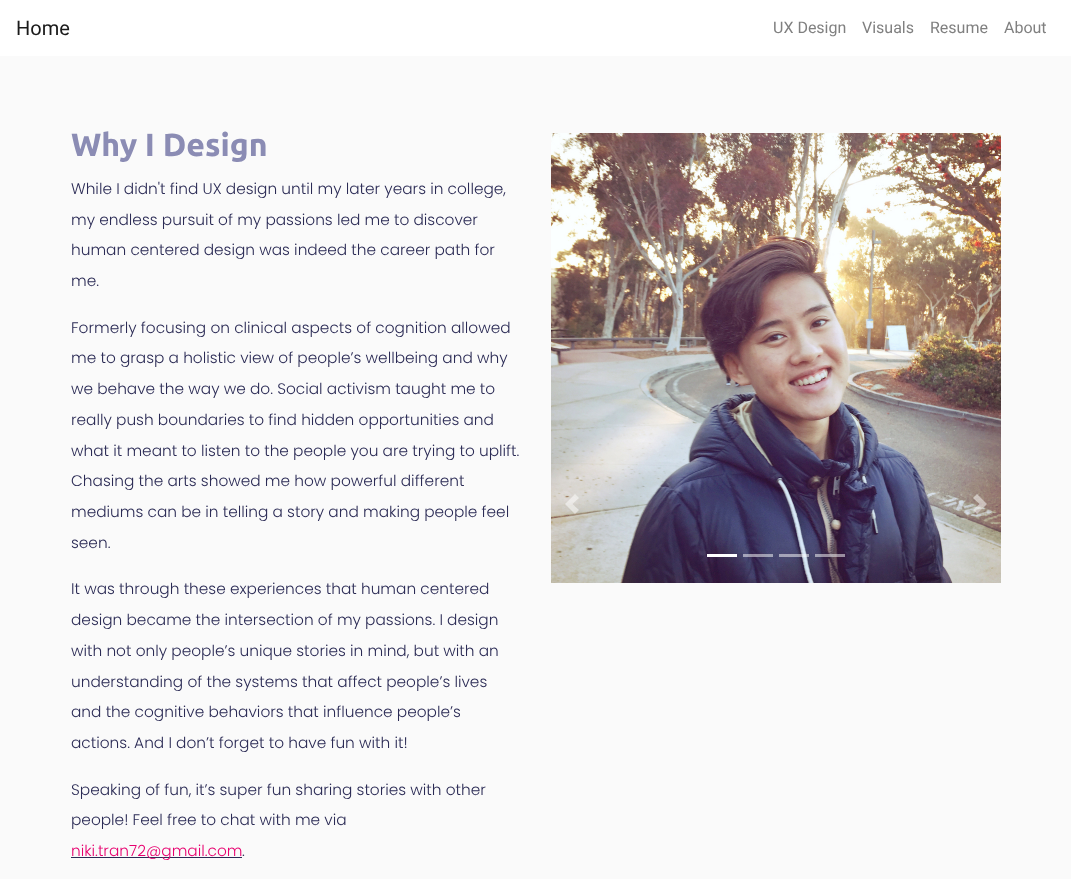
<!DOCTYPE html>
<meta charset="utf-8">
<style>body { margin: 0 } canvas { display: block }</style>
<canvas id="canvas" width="1071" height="879"></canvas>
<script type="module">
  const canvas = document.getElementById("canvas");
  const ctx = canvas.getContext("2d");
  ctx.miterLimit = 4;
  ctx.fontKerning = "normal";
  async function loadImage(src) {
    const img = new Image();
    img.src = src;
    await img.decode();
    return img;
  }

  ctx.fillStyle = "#fafafa";
  ctx.fillRect(0, 0, 1071, 879);
  ctx.fillStyle = "#ffffff";
  ctx.fillRect(0, 0, 1071, 56);
  ctx.font = "20px Roboto";
  ctx.fillStyle = "#1a1a1a";
  ctx.fillText("Home", 16, 35);
  ctx.font = "16px Roboto";
  ctx.fillStyle = "#808080";
  ctx.fillText("UX Design", 773, 33);
  ctx.fillText("Visuals", 862, 33);
  ctx.fillText("Resume", 930, 33);
  ctx.fillText("About", 1004, 33);
  ctx.font = "bold 32px Ubuntu";
  ctx.fillStyle = "#8b8cb4";
  ctx.fillText("Why I Design", 71, 156);
  ctx.font = "300 15.35px Poppins";
  ctx.fillStyle = "#2b2b55";
  ctx.fillText("While I didn't find UX design until my later years in college,", 71, 194);
  ctx.fillText("my endless pursuit of my passions led me to discover", 71, 225);
  ctx.fillText("human centered design was indeed the career path for", 71, 255);
  ctx.fillText("me.", 71, 286);
  ctx.fillText("Formerly focusing on clinical aspects of cognition allowed", 71, 333);
  ctx.fillText("me to grasp a holistic view of people’s wellbeing and why", 71, 363);
  ctx.fillText("we behave the way we do. Social activism taught me to", 71, 394);
  ctx.fillText("really push boundaries to find hidden opportunities and", 71, 425);
  ctx.fillText("what it meant to listen to the people you are trying to uplift.", 71, 456);
  ctx.fillText("Chasing the arts showed me how powerful different", 71, 486);
  ctx.fillText("mediums can be in telling a story and making people feel", 71, 517);
  ctx.fillText("seen.", 71, 548);
  ctx.fillText("It was through these experiences that human centered", 71, 594);
  ctx.fillText("design became the intersection of my passions. I design", 71, 625);
  ctx.fillText("with not only people’s unique stories in mind, but with an", 71, 656);
  ctx.fillText("understanding of the systems that affect people’s lives", 71, 687);
  ctx.fillText("and the cognitive behaviors that influence people’s", 71, 717);
  ctx.fillText("actions. And I don’t forget to have fun with it!", 71, 748);
  ctx.fillText("Speaking of fun, it’s super fun sharing stories with other", 71, 795);
  ctx.fillText("people! Feel free to chat with me via", 71, 825);
  ctx.fillRect(71, 857, 171, 1);
  ctx.fillStyle = "#e7006f";
  ctx.fillText("niki.tran72@gmail.com", 71, 856);
  ctx.fillStyle = "#2b2b55";
  ctx.fillText(".", 242, 856);
  ctx.drawImage(await loadImage("img1.png"), 551, 133, 450, 450);
  ctx.fillStyle = "#ffffff";
  ctx.fillRect(707, 554, 30, 3);
  ctx.fillStyle = "rgba(255, 255, 255, 0.5)";
  ctx.fillRect(743, 554, 30, 3);
  ctx.fillRect(779, 554, 30, 3);
  ctx.fillRect(815, 554, 30, 3);
  ctx.beginPath();
  ctx.moveTo(575, 494);
  ctx.lineTo(565, 504);
  ctx.lineTo(575, 514);
  ctx.lineTo(579, 510);
  ctx.lineTo(572.5, 504);
  ctx.lineTo(579, 498);
  ctx.closePath();
  ctx.fill();
  ctx.beginPath();
  ctx.moveTo(977, 494);
  ctx.lineTo(973, 498);
  ctx.lineTo(979.5, 504);
  ctx.lineTo(973, 510);
  ctx.lineTo(977, 514);
  ctx.lineTo(987, 504);
  ctx.closePath();
  ctx.fill();
</script>
